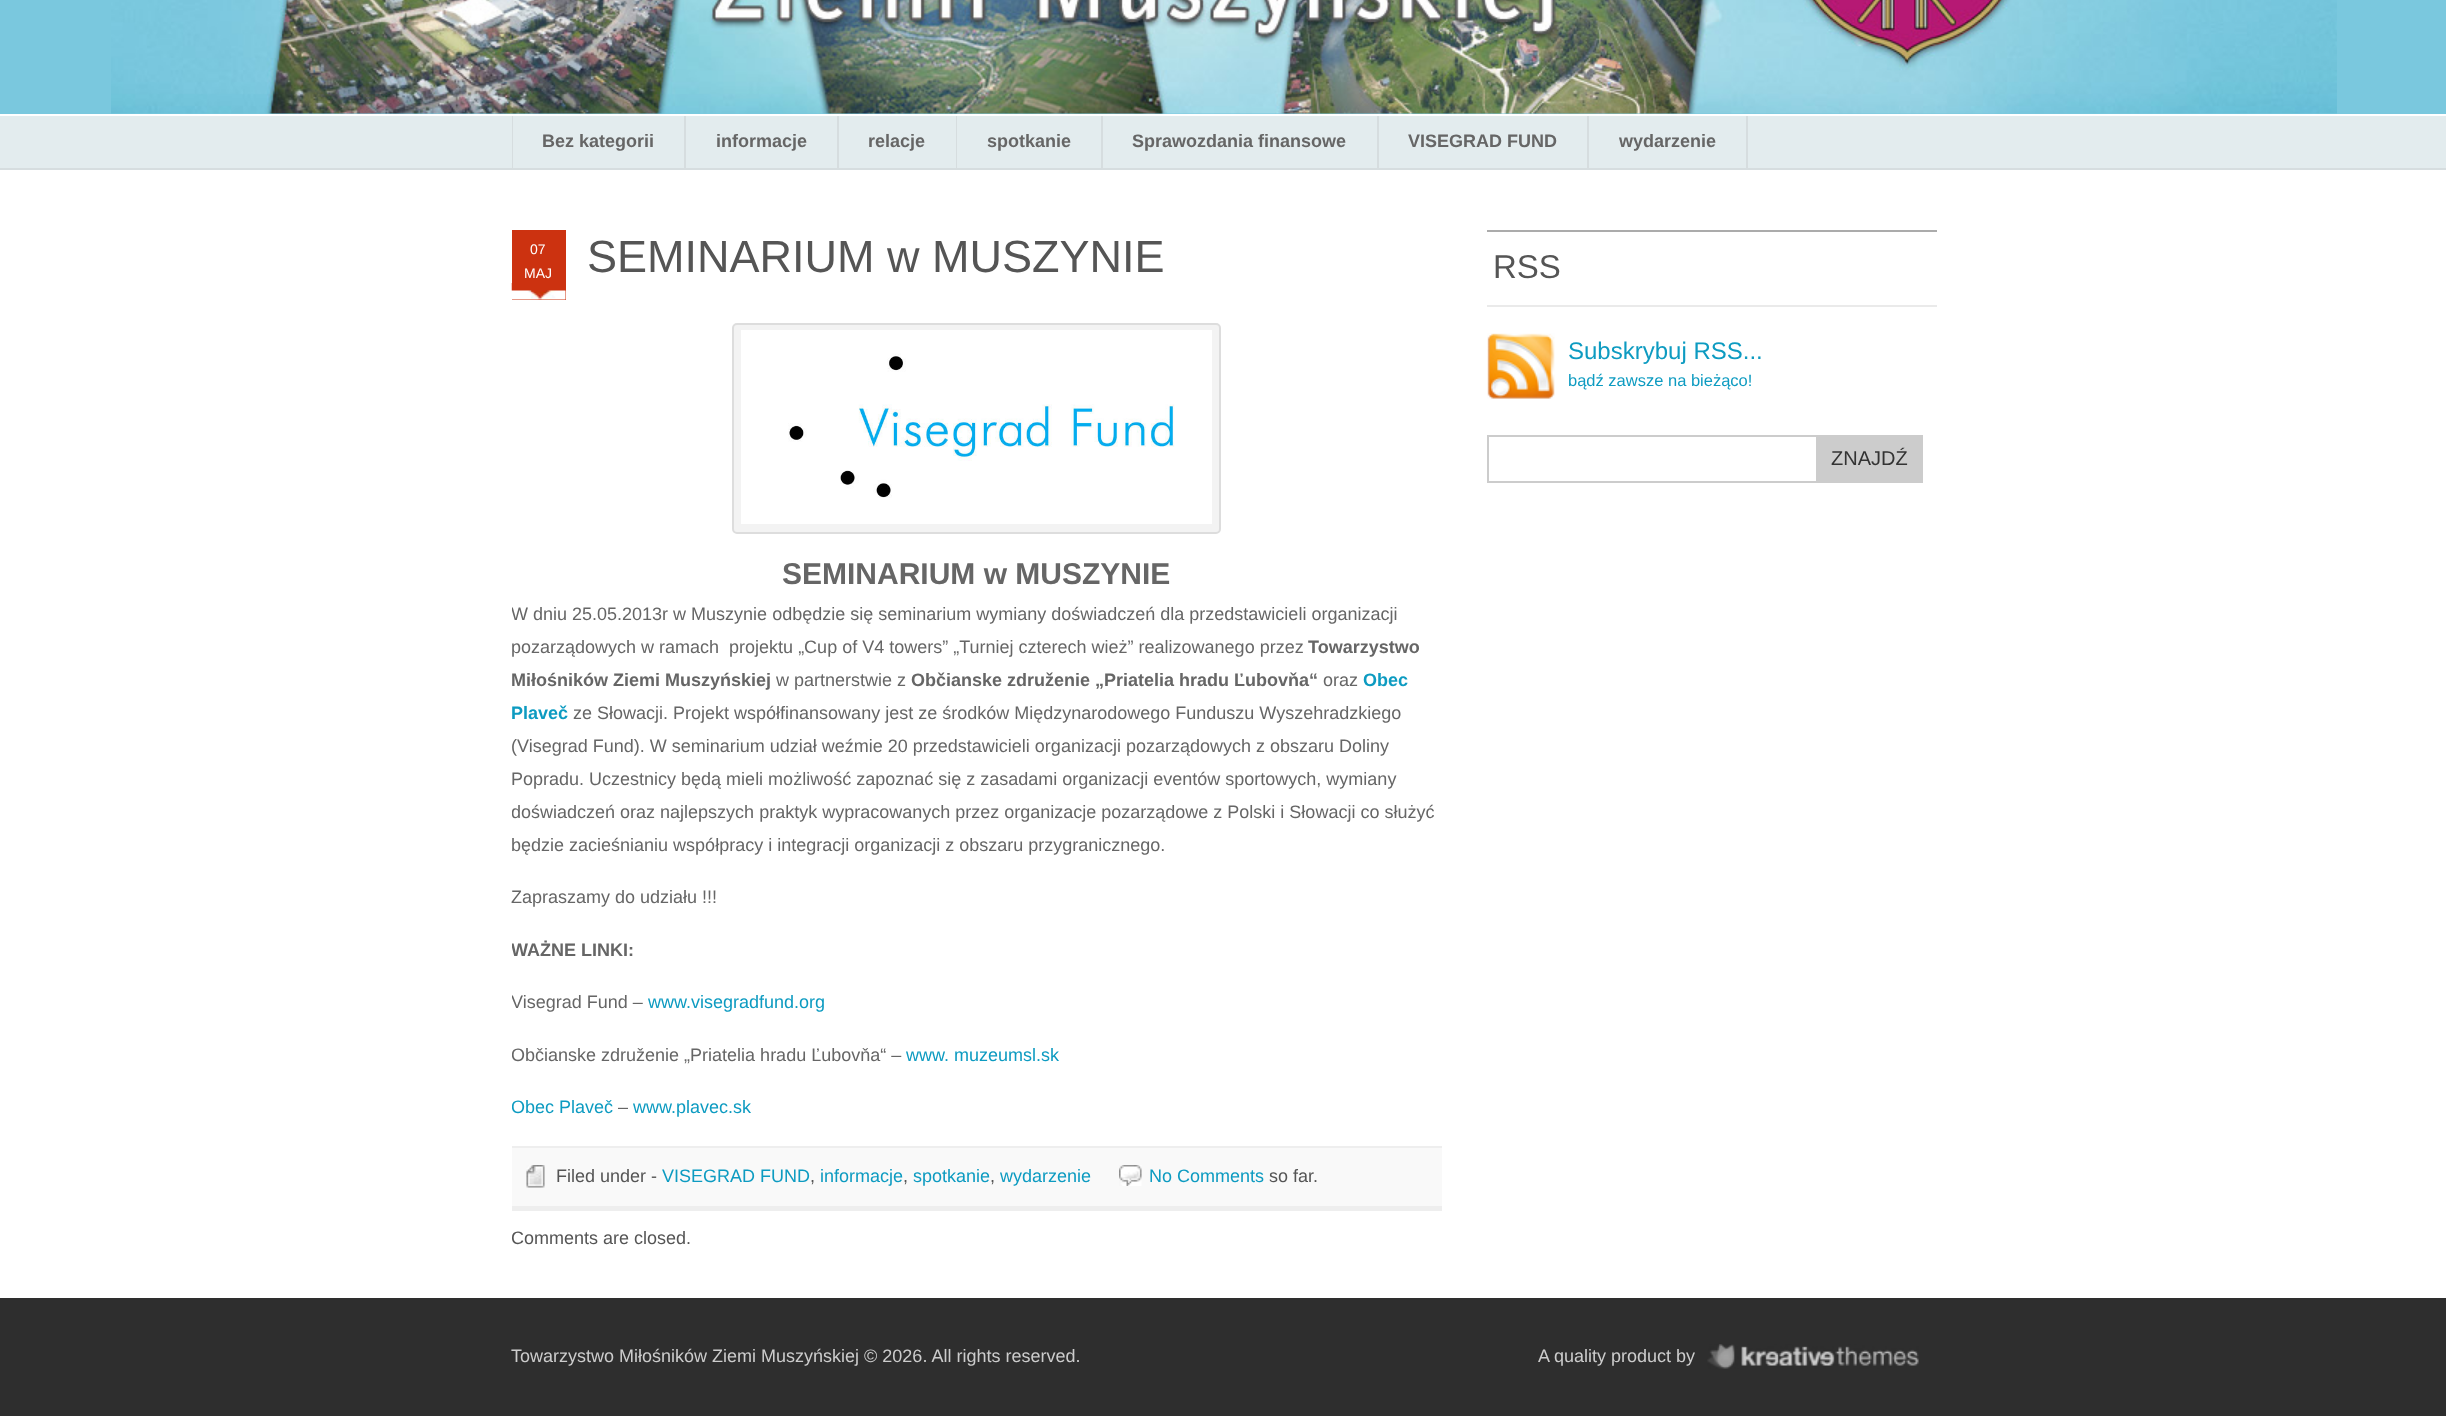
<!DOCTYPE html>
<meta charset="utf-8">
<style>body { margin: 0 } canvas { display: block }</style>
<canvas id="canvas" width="2446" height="1416"></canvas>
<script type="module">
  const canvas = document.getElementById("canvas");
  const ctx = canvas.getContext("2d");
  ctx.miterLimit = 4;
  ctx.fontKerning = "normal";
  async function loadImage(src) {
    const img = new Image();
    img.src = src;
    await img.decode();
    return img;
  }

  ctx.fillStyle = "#ffffff";
  ctx.fillRect(0, 0, 2446, 1416);
  ctx.fillStyle = "#7ac8de";
  ctx.fillRect(0, 0, 2446, 114);
  ctx.drawImage(await loadImage("img1.png"), 111, 0, 2226, 114);
  ctx.fillStyle = "#e3ecee";
  ctx.fillRect(0, 116, 2446, 52);
  ctx.fillStyle = "#d6dddf";
  ctx.fillRect(0, 168, 2446, 2);
  ctx.fillRect(512, 116, 1, 52);
  ctx.fillRect(684, 116, 2, 52);
  ctx.font = "bold 18px Liberation Sans";
  ctx.fillStyle = "#666666";
  ctx.fillText("Bez kategorii", 542, 147);
  ctx.fillStyle = "#d6dddf";
  ctx.fillRect(837, 116, 2, 52);
  ctx.fillStyle = "#666666";
  ctx.fillText("informacje", 716, 147);
  ctx.fillStyle = "#d6dddf";
  ctx.fillRect(956, 116, 1, 52);
  ctx.fillStyle = "#666666";
  ctx.fillText("relacje", 868, 147);
  ctx.fillStyle = "#d6dddf";
  ctx.fillRect(1101, 116, 2, 52);
  ctx.fillStyle = "#666666";
  ctx.fillText("spotkanie", 987, 147);
  ctx.fillStyle = "#d6dddf";
  ctx.fillRect(1377, 116, 2, 52);
  ctx.fillStyle = "#666666";
  ctx.fillText("Sprawozdania finansowe", 1132, 147);
  ctx.fillStyle = "#d6dddf";
  ctx.fillRect(1587, 116, 2, 52);
  ctx.fillStyle = "#666666";
  ctx.fillText("VISEGRAD FUND", 1408, 147);
  ctx.fillStyle = "#d6dddf";
  ctx.fillRect(1746, 116, 2, 52);
  ctx.fillStyle = "#666666";
  ctx.fillText("wydarzenie", 1619, 147);
  ctx.fillStyle = "#cc3210";
  ctx.fillRect(512, 230, 54, 70);
  ctx.drawImage(await loadImage("img2.png"), 511, 283, 55, 17);
  ctx.font = "14px Liberation Sans";
  ctx.fillStyle = "#ffffff";
  ctx.fillText("07", 530, 254);
  ctx.fillText("MAJ", 524, 278);
  ctx.font = "45px Liberation Sans";
  ctx.fillStyle = "#555555";
  ctx.fillText("SEMINARIUM w MUSZYNIE", 587, 272);
  ctx.fillStyle = "#f3f3f3";
  ctx.beginPath();
  ctx.roundRect(733, 324, 487, 209, 4);
  ctx.fill();
  ctx.strokeStyle = "#dddddd";
  ctx.lineWidth = 2;
  ctx.stroke();
  ctx.drawImage(await loadImage("img3.png"), 741, 330, 471, 194);
  ctx.font = "bold 30px Liberation Sans";
  ctx.fillStyle = "#666666";
  ctx.fillText("SEMINARIUM w MUSZYNIE", 782, 584);
  ctx.save();
  ctx.beginPath();
  ctx.rect(512, 230, 930, 1023);
  ctx.clip();
  ctx.font = "18px Liberation Sans";
  ctx.fillText("W dniu 25.05.2013r w Muszynie odbędzie się seminarium wymiany doświadczeń dla przedstawicieli organizacji", 511, 620);
  ctx.restore();
  ctx.font = "18px Liberation Sans";
  ctx.fillText("pozarządowych w ramach  projektu „Cup of V4 towers” „Turniej czterech wież” realizowanego przez", 511, 653);
  ctx.font = "bold 18px Liberation Sans";
  ctx.fillText("Towarzystwo", 1308, 653);
  ctx.fillText("Miłośników Ziemi Muszyńskiej", 511, 686);
  ctx.font = "18px Liberation Sans";
  ctx.fillText("w partnerstwie z", 776, 686);
  ctx.font = "bold 18px Liberation Sans";
  ctx.fillText("Občianske združenie „Priatelia hradu Ľubovňa“", 911, 686);
  ctx.font = "18px Liberation Sans";
  ctx.fillText("oraz", 1323, 686);
  ctx.font = "bold 18px Liberation Sans";
  ctx.fillStyle = "#0d9bc1";
  ctx.fillText("Obec", 1363, 686);
  ctx.fillText("Plaveč", 511, 719);
  ctx.font = "18px Liberation Sans";
  ctx.fillStyle = "#666666";
  ctx.fillText("ze Słowacji. Projekt współfinansowany jest ze środków Międzynarodowego Funduszu Wyszehradzkiego", 573, 719);
  ctx.fillText("(Visegrad Fund). W seminarium udział weźmie 20 przedstawicieli organizacji pozarządowych z obszaru Doliny", 511, 752);
  ctx.fillText("Popradu. Uczestnicy będą mieli możliwość zapoznać się z zasadami organizacji eventów sportowych, wymiany", 511, 785);
  ctx.save();
  ctx.beginPath();
  ctx.rect(512, 230, 930, 1023);
  ctx.clip();
  ctx.fillText("doświadczeń oraz najlepszych praktyk wypracowanych przez organizacje pozarządowe z Polski i Słowacji co służyć", 511, 818);
  ctx.restore();
  ctx.fillText("będzie zacieśnianiu współpracy i integracji organizacji z obszaru przygranicznego.", 511, 851);
  ctx.fillText("Zapraszamy do udziału !!!", 511, 903);
  ctx.save();
  ctx.beginPath();
  ctx.rect(512, 230, 930, 1023);
  ctx.clip();
  ctx.font = "bold 18px Liberation Sans";
  ctx.fillText("WAŻNE LINKI:", 511, 956);
  ctx.font = "18px Liberation Sans";
  ctx.fillText("Visegrad Fund –", 511, 1008);
  ctx.restore();
  ctx.fillStyle = "#0d9bc1";
  ctx.fillText("www.visegradfund.org", 648, 1008);
  ctx.save();
  ctx.beginPath();
  ctx.rect(512, 230, 930, 1023);
  ctx.clip();
  ctx.fillStyle = "#666666";
  ctx.fillText("Občianske združenie „Priatelia hradu Ľubovňa“ –", 511, 1061);
  ctx.restore();
  ctx.fillText("www. muzeumsl.sk", 906, 1061);
  ctx.save();
  ctx.beginPath();
  ctx.rect(512, 230, 930, 1023);
  ctx.clip();
  ctx.fillText("Obec Plaveč", 511, 1113);
  ctx.restore();
  ctx.fillStyle = "#666666";
  ctx.fillText("–", 618, 1113);
  ctx.fillStyle = "#0d9bc1";
  ctx.fillText("www.plavec.sk", 633, 1113);
  ctx.fillStyle = "#f9f9f9";
  ctx.fillRect(512, 1148, 930, 58);
  ctx.fillStyle = "#eeeeee";
  ctx.fillRect(512, 1146, 930, 2);
  ctx.fillRect(512, 1206, 930, 5);
  ctx.drawImage(await loadImage("img4.png"), 526, 1165, 19, 23);
  ctx.fillStyle = "#555555";
  ctx.fillText("Filed under -", 556, 1182);
  ctx.fillStyle = "#0d9bc1";
  ctx.fillText("VISEGRAD FUND", 662, 1182);
  ctx.fillStyle = "#555555";
  ctx.fillText(",", 810, 1182);
  ctx.fillStyle = "#0d9bc1";
  ctx.fillText("informacje", 820, 1182);
  ctx.fillStyle = "#555555";
  ctx.fillText(",", 903, 1182);
  ctx.fillStyle = "#0d9bc1";
  ctx.fillText("spotkanie", 913, 1182);
  ctx.fillStyle = "#555555";
  ctx.fillText(",", 990, 1182);
  ctx.fillStyle = "#0d9bc1";
  ctx.fillText("wydarzenie", 1000, 1182);
  ctx.drawImage(await loadImage("img5.png"), 1119, 1165, 23, 21);
  ctx.fillText("No Comments", 1149, 1182);
  ctx.fillStyle = "#555555";
  ctx.fillText("so far.", 1269, 1182);
  ctx.save();
  ctx.beginPath();
  ctx.rect(512, 230, 930, 1023);
  ctx.clip();
  ctx.fillText("Comments are closed.", 511, 1244);
  ctx.restore();
  ctx.fillStyle = "#ababab";
  ctx.fillRect(1487, 230, 450, 2);
  ctx.fillStyle = "#eaeaea";
  ctx.fillRect(1487, 305, 450, 2);
  ctx.font = "33px Liberation Sans";
  ctx.fillStyle = "#555555";
  ctx.fillText("RSS", 1493, 278);
  ctx.drawImage(await loadImage("img6.png"), 1487, 333, 68, 66);
  ctx.font = "24px Liberation Sans";
  ctx.fillStyle = "#0d9bc1";
  ctx.fillText("Subskrybuj RSS...", 1568, 359);
  ctx.font = "16.5px Liberation Sans";
  ctx.fillText("bądź zawsze na bieżąco!", 1568, 386);
  ctx.strokeStyle = "#cccccc";
  ctx.strokeRect(1488, 436, 329, 46);
  ctx.fillStyle = "#cccccc";
  ctx.fillRect(1818, 435, 105, 48);
  ctx.font = "20px Liberation Sans";
  ctx.fillStyle = "#333333";
  ctx.fillText("ZNAJDŹ", 1831, 465);
  ctx.fillStyle = "#2e2e2e";
  ctx.fillRect(0, 1298, 2446, 118);
  ctx.font = "18px Liberation Sans";
  ctx.fillStyle = "#cccccc";
  ctx.fillText("Towarzystwo Miłośników Ziemi Muszyńskiej © 2026. All rights reserved.", 511, 1362);
  ctx.fillText("A quality product by", 1538, 1362);
  ctx.drawImage(await loadImage("img7.png"), 1707, 1344, 212, 25);
</script>
